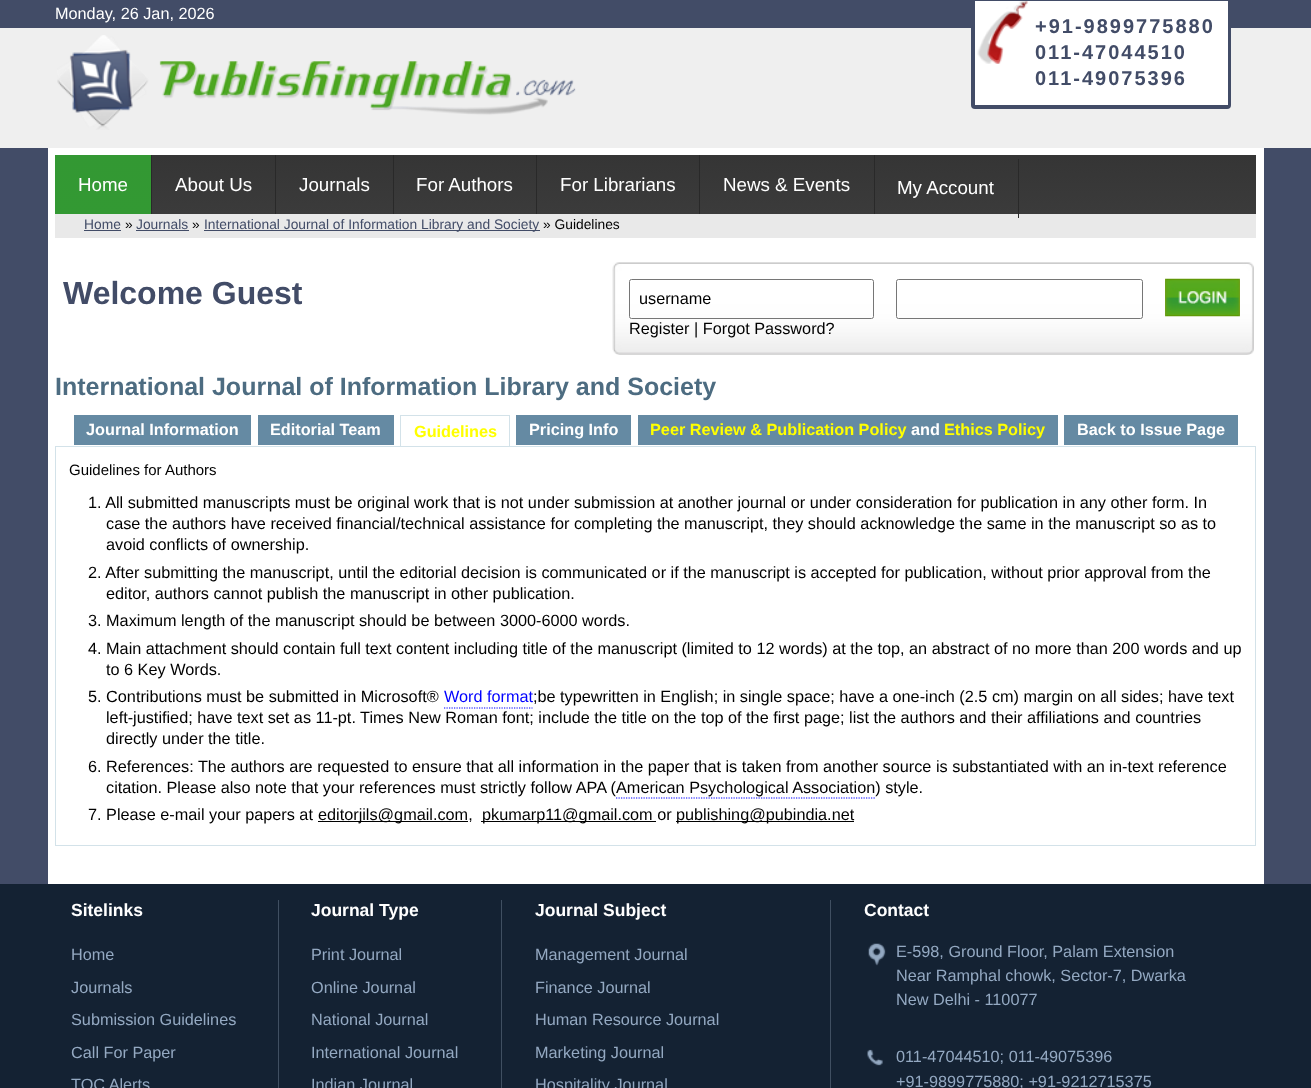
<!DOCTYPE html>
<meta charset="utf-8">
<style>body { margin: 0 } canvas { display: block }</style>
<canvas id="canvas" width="1311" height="1088"></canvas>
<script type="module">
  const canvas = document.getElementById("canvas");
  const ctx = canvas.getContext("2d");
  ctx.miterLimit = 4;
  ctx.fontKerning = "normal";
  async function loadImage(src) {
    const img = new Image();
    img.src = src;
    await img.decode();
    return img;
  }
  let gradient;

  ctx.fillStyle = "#424c67";
  ctx.fillRect(0, 0, 1311, 1088);
  ctx.font = "16.25px Liberation Sans";
  ctx.fillStyle = "#ffffff";
  ctx.fillText("Monday, 26 Jan, 2026", 55, 19);
  ctx.fillStyle = "#efefef";
  ctx.fillRect(0, 28, 1311, 120);
  ctx.drawImage(await loadImage("img1.png"), 57, 35, 519, 95);
  ctx.fillStyle = "#424c67";
  ctx.beginPath();
  ctx.roundRect(971, -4, 260, 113, 4);
  ctx.fill();
  ctx.fillStyle = "#ffffff";
  ctx.fillRect(975, 1, 253, 104);
  ctx.drawImage(await loadImage("img2.png"), 977, 1, 51, 63);
  ctx.letterSpacing = "2px";
  ctx.font = "bold 20px Liberation Sans";
  ctx.fillStyle = "#424c67";
  ctx.fillText("+91-9899775880", 1035, 33);
  ctx.fillText("011-47044510", 1035, 59);
  ctx.fillText("011-49075396", 1035, 85);
  ctx.fillStyle = "#ffffff";
  ctx.fillRect(48, 148, 1216, 736);
  gradient = ctx.createLinearGradient(55, 155, 55, 214);
  gradient.addColorStop(0, "#353535");
  gradient.addColorStop(1, "#3b3b3b");
  ctx.fillStyle = gradient;
  ctx.fillRect(152, 155, 1104, 59);
  ctx.fillStyle = "#292929";
  ctx.fillRect(151, 155, 1, 59);
  gradient = ctx.createLinearGradient(55, 155, 55, 214);
  gradient.addColorStop(0, "#339833");
  gradient.addColorStop(1, "#339933");
  ctx.fillStyle = gradient;
  ctx.fillRect(55, 155, 96, 59);
  ctx.letterSpacing = "0px";
  ctx.font = "18.75px Liberation Sans";
  ctx.fillStyle = "#ffffff";
  ctx.fillText("Home", 78, 191);
  ctx.fillStyle = "#292929";
  ctx.fillRect(275, 155, 1, 59);
  ctx.fillStyle = "#ffffff";
  ctx.fillText("About Us", 175, 191);
  ctx.fillStyle = "#292929";
  ctx.fillRect(393, 155, 1, 59);
  ctx.fillStyle = "#ffffff";
  ctx.fillText("Journals", 299, 191);
  ctx.fillStyle = "#292929";
  ctx.fillRect(536, 155, 1, 59);
  ctx.fillStyle = "#ffffff";
  ctx.fillText("For Authors", 416, 191);
  ctx.fillStyle = "#292929";
  ctx.fillRect(699, 155, 1, 59);
  ctx.fillStyle = "#ffffff";
  ctx.fillText("For Librarians", 560, 191);
  ctx.fillStyle = "#292929";
  ctx.fillRect(874, 155, 1, 59);
  ctx.fillStyle = "#ffffff";
  ctx.fillText("News & Events", 723, 191);
  ctx.fillStyle = "#e9e9e9";
  ctx.fillRect(55, 214, 1201, 24);
  ctx.fillStyle = "#292929";
  ctx.fillRect(1018, 159, 1, 59);
  ctx.fillStyle = "#ffffff";
  ctx.fillText("My Account", 897, 194);
  ctx.font = "bold 32px Liberation Sans";
  ctx.fillStyle = "#424c67";
  ctx.fillText("Welcome Guest", 63, 304);
  ctx.drawImage(await loadImage("img3.png"), 612, 262, 642, 93);
  ctx.beginPath();
  ctx.roundRect(629.5, 279.5, 244, 39, 2);
  ctx.strokeStyle = "#767676";
  ctx.stroke();
  ctx.font = "16.25px Liberation Sans";
  ctx.fillStyle = "#000000";
  ctx.fillText("username", 639, 304);
  ctx.beginPath();
  ctx.roundRect(896.5, 279.5, 246, 39, 2);
  ctx.stroke();
  ctx.drawImage(await loadImage("img4.png"), 1165, 278, 75, 39);
  ctx.fillText("Register | Forgot Password?", 629, 334);
  ctx.font = "13.8px Liberation Sans";
  ctx.fillStyle = "#424c67";
  ctx.fillText("Home", 84, 229);
  ctx.fillRect(84, 230, 37, 1);
  ctx.fillStyle = "#000000";
  ctx.fillText("»", 125, 229);
  ctx.fillStyle = "#424c67";
  ctx.fillText("Journals", 136, 229);
  ctx.fillRect(136, 230, 53, 1);
  ctx.fillStyle = "#000000";
  ctx.fillText("»", 192, 229);
  ctx.fillStyle = "#424c67";
  ctx.fillRect(204, 230, 336, 1);
  ctx.fillText("International Journal of Information Library and Society", 204, 229);
  ctx.fillStyle = "#000000";
  ctx.fillText("» Guidelines", 543, 229);
  ctx.font = "bold 25px Liberation Sans";
  ctx.fillStyle = "#4d6c81";
  ctx.fillText("International Journal of Information Library and Society", 55, 395);
  ctx.fillStyle = "#658aa3";
  ctx.fillRect(74, 415, 177, 30);
  ctx.font = "bold 16.25px Liberation Sans";
  ctx.fillStyle = "#ffffff";
  ctx.fillText("Journal Information", 86, 435);
  ctx.fillStyle = "#658aa3";
  ctx.fillRect(258, 415, 136, 30);
  ctx.fillStyle = "#ffffff";
  ctx.fillText("Editorial Team", 270, 435);
  ctx.fillStyle = "#d3e2e9";
  ctx.fillRect(400, 415, 110, 1);
  ctx.fillRect(509, 415, 1, 31);
  ctx.fillRect(400, 415, 1, 31);
  ctx.fillStyle = "#ffff00";
  ctx.fillText("Guidelines", 414, 437);
  ctx.fillStyle = "#658aa3";
  ctx.fillRect(516, 415, 115, 30);
  ctx.fillStyle = "#ffffff";
  ctx.fillText("Pricing Info", 529, 435);
  ctx.fillStyle = "#658aa3";
  ctx.fillRect(638, 415, 420, 30);
  ctx.fillStyle = "#ffff00";
  ctx.fillText("Peer Review & Publication Policy", 650, 435);
  ctx.fillStyle = "#ffffff";
  ctx.fillText("and", 911, 435);
  ctx.fillStyle = "#ffff00";
  ctx.fillText("Ethics Policy", 944, 435);
  ctx.fillStyle = "#658aa3";
  ctx.fillRect(1064, 415, 174, 30);
  ctx.fillStyle = "#ffffff";
  ctx.fillText("Back to Issue Page", 1077, 435);
  ctx.strokeStyle = "#d3e2e9";
  ctx.strokeRect(55.5, 446.5, 1200, 399);
  ctx.font = "15px Liberation Sans";
  ctx.fillStyle = "#000000";
  ctx.fillText("Guidelines for Authors", 69, 475);
  ctx.font = "16.25px Liberation Sans";
  ctx.fillText("1. All submitted manuscripts must be original work that is not under submission at another journal or under consideration for publication in any other form. In", 88, 508);
  ctx.fillText("case the authors have received financial/technical assistance for completing the manuscript, they should acknowledge the same in the manuscript so as to", 106, 529);
  ctx.fillText("avoid conflicts of ownership.", 106, 550);
  ctx.fillText("2. After submitting the manuscript, until the editorial decision is communicated or if the manuscript is accepted for publication, without prior approval from the", 88, 578);
  ctx.fillText("editor, authors cannot publish the manuscript in other publication.", 106, 599);
  ctx.fillText("3. Maximum length of the manuscript should be between 3000-6000 words.", 88, 626);
  ctx.fillText("4. Main attachment should contain full text content including title of the manuscript (limited to 12 words) at the top, an abstract of no more than 200 words and up", 88, 654);
  ctx.fillText("to 6 Key Words.", 106, 675);
  ctx.fillText("5. Contributions must be submitted in Microsoft®", 88, 702);
  ctx.fillStyle = "#0000ff";
  ctx.fillText("Word format", 444, 702);
  ctx.beginPath();
  ctx.moveTo(444, 708);
  ctx.lineTo(532.5, 708);
  ctx.strokeStyle = "#0000ff";
  ctx.lineWidth = 1.2;
  ctx.setLineDash([1.25, 1.25]);
  ctx.stroke();
  ctx.fillStyle = "#000000";
  ctx.fillText(";be typewritten in English; in single space; have a one-inch (2.5 cm) margin on all sides; have text", 533, 702);
  ctx.fillText("left-justified; have text set as 11-pt. Times New Roman font; include the title on the top of the first page; list the authors and their affiliations and countries", 106, 723);
  ctx.fillText("directly under the title.", 106, 744);
  ctx.fillText("6. References: The authors are requested to ensure that all information in the paper that is taken from another source is substantiated with an in-text reference", 88, 772);
  ctx.fillText("citation. Please also note that your references must strictly follow APA (American Psychological Association) style.", 106, 793);
  ctx.beginPath();
  ctx.moveTo(616, 798);
  ctx.lineTo(876, 798);
  ctx.stroke();
  ctx.fillText("7. Please e-mail your papers at", 88, 820);
  ctx.fillRect(318, 821, 150, 1);
  ctx.fillText("editorjils@gmail.com,", 318, 820);
  ctx.fillRect(481, 821, 175, 1);
  ctx.fillText("pkumarp11@gmail.com or", 482, 820);
  ctx.fillRect(676, 821, 178, 1);
  ctx.fillText("publishing@pubindia.net", 676, 820);
  ctx.fillStyle = "#142233";
  ctx.fillRect(0, 884, 1311, 204);
  ctx.fillStyle = "#404f61";
  ctx.fillRect(278, 900, 1, 188);
  ctx.font = "bold 17.5px Liberation Sans";
  ctx.fillStyle = "#ffffff";
  ctx.fillText("Sitelinks", 71, 916);
  ctx.font = "16.25px Liberation Sans";
  ctx.fillStyle = "#94a9c2";
  ctx.fillText("Home", 71, 960);
  ctx.fillText("Journals", 71, 993);
  ctx.fillText("Submission Guidelines", 71, 1025);
  ctx.fillText("Call For Paper", 71, 1058);
  ctx.fillText("TOC Alerts", 71, 1090);
  ctx.fillStyle = "#404f61";
  ctx.fillRect(501, 900, 1, 188);
  ctx.font = "bold 17.5px Liberation Sans";
  ctx.fillStyle = "#ffffff";
  ctx.fillText("Journal Type", 311, 916);
  ctx.font = "16.25px Liberation Sans";
  ctx.fillStyle = "#94a9c2";
  ctx.fillText("Print Journal", 311, 960);
  ctx.fillText("Online Journal", 311, 993);
  ctx.fillText("National Journal", 311, 1025);
  ctx.fillText("International Journal", 311, 1058);
  ctx.fillText("Indian Journal", 311, 1090);
  ctx.fillStyle = "#404f61";
  ctx.fillRect(830, 900, 1, 188);
  ctx.font = "bold 17.5px Liberation Sans";
  ctx.fillStyle = "#ffffff";
  ctx.fillText("Journal Subject", 535, 916);
  ctx.font = "16.25px Liberation Sans";
  ctx.fillStyle = "#94a9c2";
  ctx.fillText("Management Journal", 535, 960);
  ctx.fillText("Finance Journal", 535, 993);
  ctx.fillText("Human Resource Journal", 535, 1025);
  ctx.fillText("Marketing Journal", 535, 1058);
  ctx.fillText("Hospitality Journal", 535, 1090);
  ctx.font = "bold 17.5px Liberation Sans";
  ctx.fillStyle = "#ffffff";
  ctx.fillText("Contact", 864, 916);
  ctx.drawImage(await loadImage("img5.png"), 868, 943, 18, 23);
  ctx.font = "16.25px Liberation Sans";
  ctx.fillStyle = "#94a9c2";
  ctx.fillText("E-598, Ground Floor, Palam Extension", 896, 957);
  ctx.fillText("Near Ramphal chowk, Sector-7, Dwarka", 896, 981);
  ctx.fillText("New Delhi - 110077", 896, 1005);
  ctx.drawImage(await loadImage("img6.png"), 867, 1049, 16, 17);
  ctx.fillText("011-47044510; 011-49075396", 896, 1062);
  ctx.fillText("+91-9899775880; +91-9212715375", 896, 1087);
</script>
